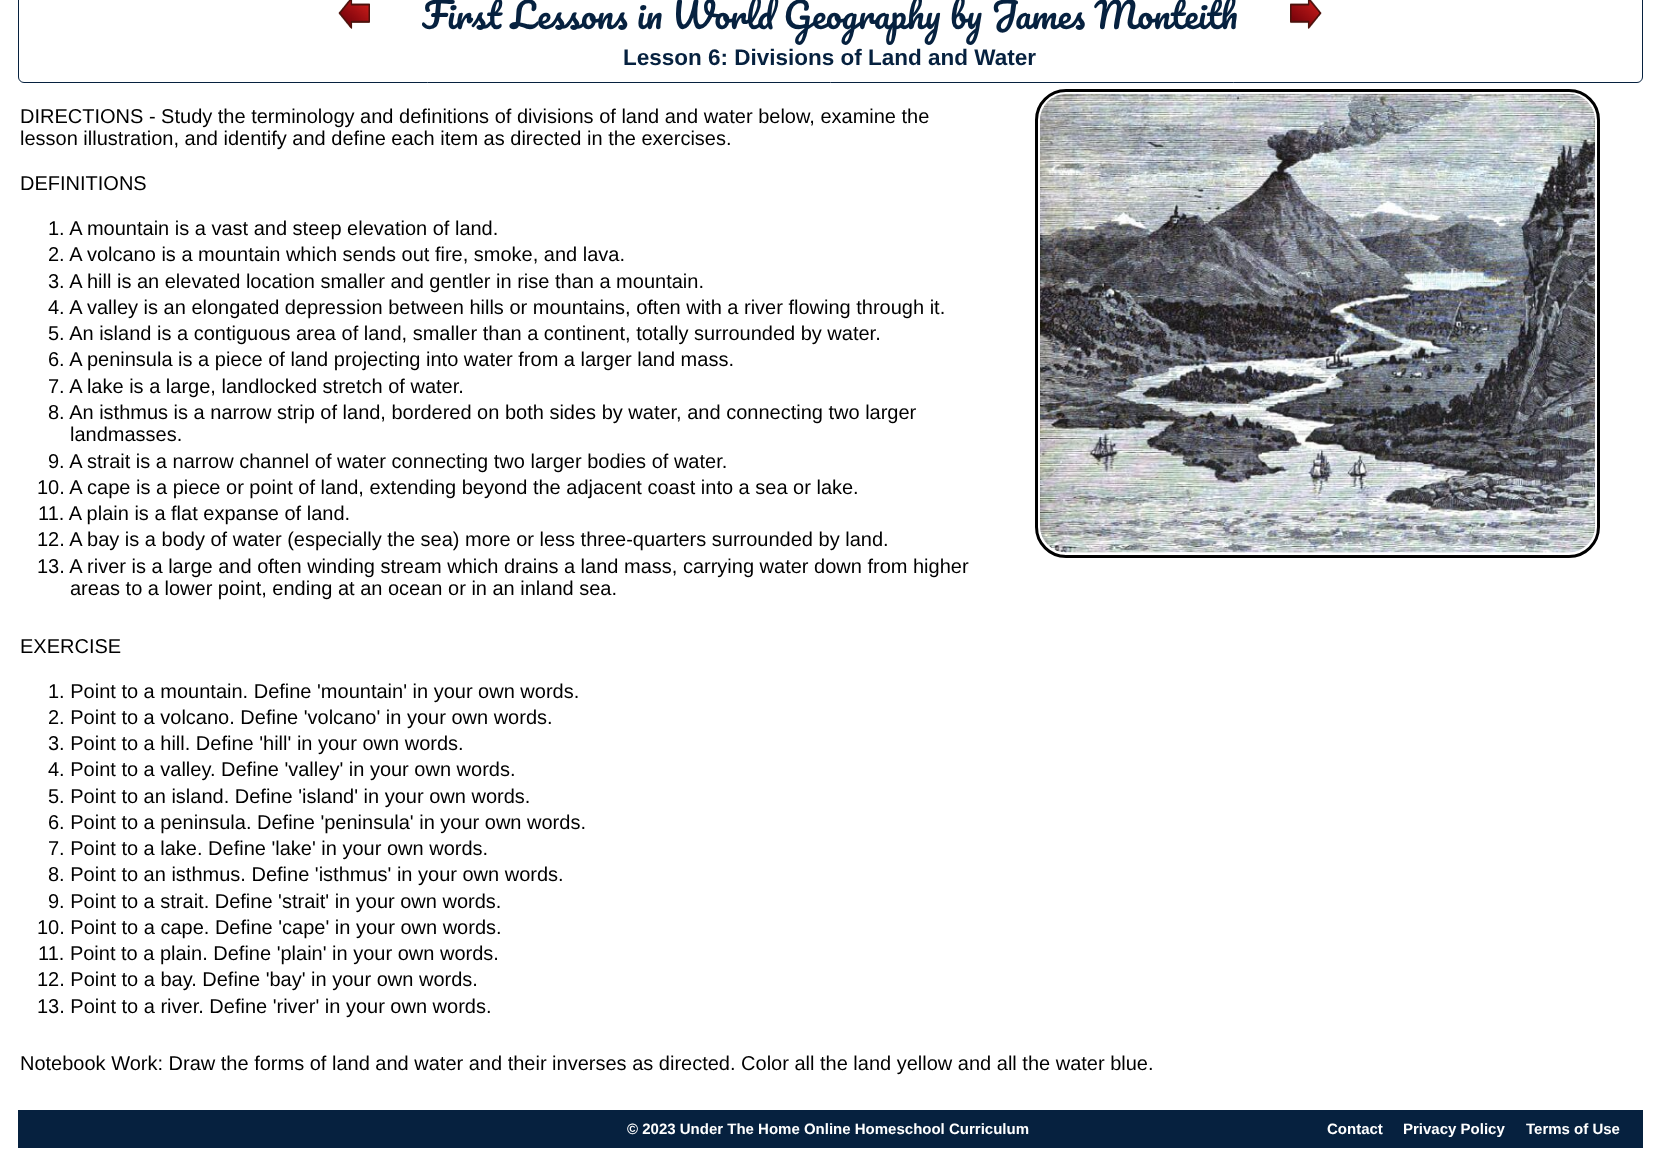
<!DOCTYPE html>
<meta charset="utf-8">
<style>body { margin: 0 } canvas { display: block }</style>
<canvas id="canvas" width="1659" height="1159"></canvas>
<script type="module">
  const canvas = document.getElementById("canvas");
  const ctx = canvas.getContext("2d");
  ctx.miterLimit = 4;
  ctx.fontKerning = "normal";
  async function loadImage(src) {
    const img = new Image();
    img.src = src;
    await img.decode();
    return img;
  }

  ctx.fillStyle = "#ffffff";
  ctx.fillRect(0, 0, 1659, 1159);
  ctx.beginPath();
  ctx.roundRect(18.5, -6.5, 1624, 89, 5.5);
  ctx.strokeStyle = "#06213f";
  ctx.stroke();
  ctx.drawImage(await loadImage("img1.png"), 338, 0, 32, 29);
  ctx.font = "35px Pacifico";
  ctx.fillStyle = "#06213f";
  ctx.fillText("First Lessons in World Geography by James Monteith", 422, 29);
  ctx.drawImage(await loadImage("img2.png"), 1290, 0, 32, 29);
  ctx.font = "bold 22.5px Liberation Sans";
  ctx.fillText("Lesson 6: Divisions of Land and Water", 623, 65);
  ctx.font = "20px Liberation Sans";
  ctx.fillStyle = "#000000";
  ctx.fillText("DIRECTIONS - Study the terminology and definitions of divisions of land and water below, examine the", 20, 123);
  ctx.fillText("lesson illustration, and identify and define each item as directed in the exercises.", 20, 145);
  ctx.fillText("DEFINITIONS", 20, 190);
  ctx.fillText("1. A mountain is a vast and steep elevation of land.", 48, 235);
  ctx.fillText("2. A volcano is a mountain which sends out fire, smoke, and lava.", 48, 261);
  ctx.fillText("3. A hill is an elevated location smaller and gentler in rise than a mountain.", 48, 288);
  ctx.fillText("4. A valley is an elongated depression between hills or mountains, often with a river flowing through it.", 48, 314);
  ctx.fillText("5. An island is a contiguous area of land, smaller than a continent, totally surrounded by water.", 48, 340);
  ctx.fillText("6. A peninsula is a piece of land projecting into water from a larger land mass.", 48, 366);
  ctx.fillText("7. A lake is a large, landlocked stretch of water.", 48, 393);
  ctx.fillText("8. An isthmus is a narrow strip of land, bordered on both sides by water, and connecting two larger", 48, 419);
  ctx.fillText("landmasses.", 70, 441);
  ctx.fillText("9. A strait is a narrow channel of water connecting two larger bodies of water.", 48, 468);
  ctx.fillText("10. A cape is a piece or point of land, extending beyond the adjacent coast into a sea or lake.", 37, 494);
  ctx.fillText("11. A plain is a flat expanse of land.", 38, 520);
  ctx.fillText("12. A bay is a body of water (especially the sea) more or less three-quarters surrounded by land.", 37, 546);
  ctx.fillText("13. A river is a large and often winding stream which drains a land mass, carrying water down from higher", 37, 573);
  ctx.fillText("areas to a lower point, ending at an ocean or in an inland sea.", 70, 595);
  ctx.fillText("EXERCISE", 20, 653);
  ctx.fillText("1. Point to a mountain. Define 'mountain' in your own words.", 48, 698);
  ctx.fillText("2. Point to a volcano. Define 'volcano' in your own words.", 48, 724);
  ctx.fillText("3. Point to a hill. Define 'hill' in your own words.", 48, 750);
  ctx.fillText("4. Point to a valley. Define 'valley' in your own words.", 48, 776);
  ctx.fillText("5. Point to an island. Define 'island' in your own words.", 48, 803);
  ctx.fillText("6. Point to a peninsula. Define 'peninsula' in your own words.", 48, 829);
  ctx.fillText("7. Point to a lake. Define 'lake' in your own words.", 48, 855);
  ctx.fillText("8. Point to an isthmus. Define 'isthmus' in your own words.", 48, 881);
  ctx.fillText("9. Point to a strait. Define 'strait' in your own words.", 48, 908);
  ctx.fillText("10. Point to a cape. Define 'cape' in your own words.", 37, 934);
  ctx.fillText("11. Point to a plain. Define 'plain' in your own words.", 38, 960);
  ctx.fillText("12. Point to a bay. Define 'bay' in your own words.", 37, 986);
  ctx.fillText("13. Point to a river. Define 'river' in your own words.", 37, 1013);
  ctx.fillText("Notebook Work: Draw the forms of land and water and their inverses as directed. Color all the land yellow and all the water blue.", 20, 1070);
  ctx.beginPath();
  ctx.roundRect(1036.5, 90.5, 562, 466, 29.5);
  ctx.strokeStyle = "#000000";
  ctx.lineWidth = 3;
  ctx.stroke();
  ctx.drawImage(await loadImage("img3.png"), 1040, 93, 555, 460);
  ctx.fillStyle = "#06213f";
  ctx.fillRect(18, 1110, 1625, 38);
  ctx.font = "bold 15px Liberation Sans";
  ctx.fillStyle = "#ffffff";
  ctx.fillText("© 2023 Under The Home Online Homeschool Curriculum", 627, 1134);
  ctx.fillText("Contact", 1327, 1134);
  ctx.fillText("Privacy Policy", 1403, 1134);
  ctx.fillText("Terms of Use", 1526, 1134);
</script>
